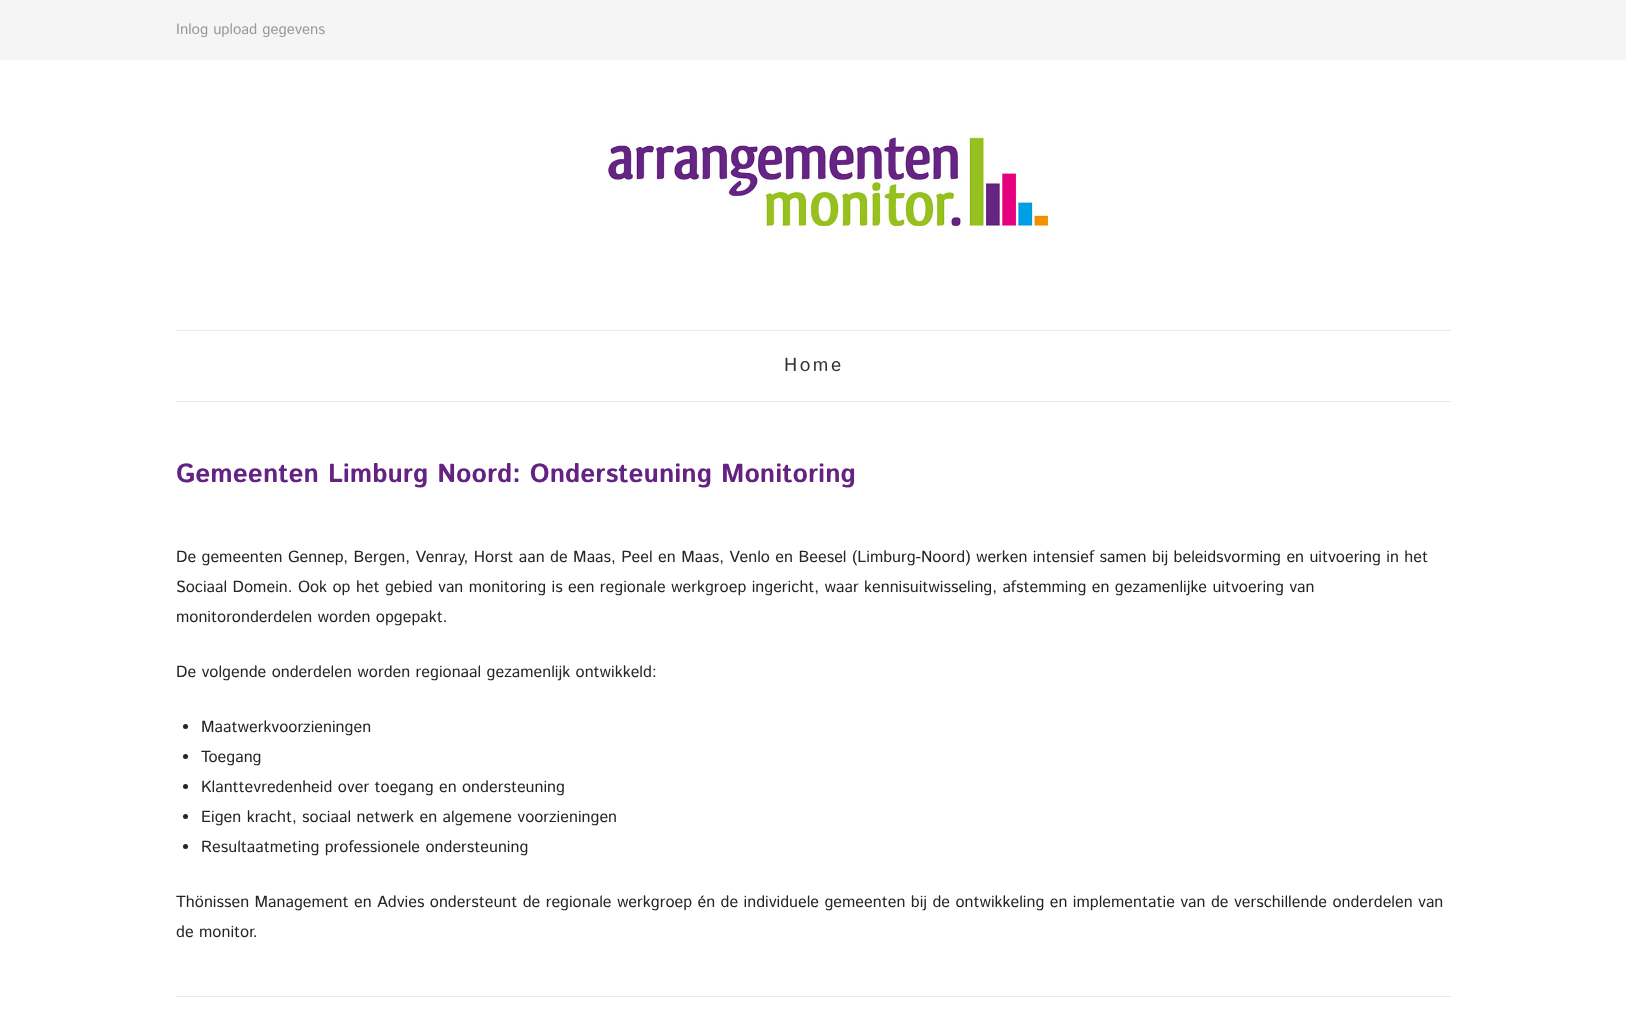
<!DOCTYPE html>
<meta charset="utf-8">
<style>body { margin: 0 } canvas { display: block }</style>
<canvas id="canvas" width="1626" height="1009"></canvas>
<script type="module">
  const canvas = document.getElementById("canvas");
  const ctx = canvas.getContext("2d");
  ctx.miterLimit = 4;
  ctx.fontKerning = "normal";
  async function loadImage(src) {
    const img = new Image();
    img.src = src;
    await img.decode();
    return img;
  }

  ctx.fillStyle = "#ffffff";
  ctx.fillRect(0, 0, 1626, 1009);
  ctx.fillStyle = "#f5f5f5";
  ctx.fillRect(0, 0, 1626, 60);
  ctx.font = "15px Istok Web";
  ctx.fillStyle = "#999999";
  ctx.fillText("Inlog upload gegevens", 176, 34);
  ctx.drawImage(await loadImage("img1.png"), 608, 137, 440, 89);
  ctx.fillStyle = "#e9e9e9";
  ctx.fillRect(176, 330, 1275, 1);
  ctx.fillRect(176, 401, 1275, 1);
  ctx.letterSpacing = "2.5px";
  ctx.font = "19px Istok Web";
  ctx.fillStyle = "#333333";
  ctx.fillText("Home", 784, 371);
  ctx.letterSpacing = "0px";
  ctx.font = "bold 26.25px Istok Web";
  ctx.fillStyle = "#642382";
  ctx.fillText("Gemeenten Limburg Noord: Ondersteuning Monitoring", 176, 482);
  ctx.font = "16.25px Istok Web";
  ctx.fillStyle = "#252525";
  ctx.fillText("De gemeenten Gennep, Bergen, Venray, Horst aan de Maas, Peel en Maas, Venlo en Beesel (Limburg-Noord) werken intensief samen bij beleidsvorming en uitvoering in het", 176, 562);
  ctx.fillText("Sociaal Domein. Ook op het gebied van monitoring is een regionale werkgroep ingericht, waar kennisuitwisseling, afstemming en gezamenlijke uitvoering van", 176, 592);
  ctx.fillText("monitoronderdelen worden opgepakt.", 176, 622);
  ctx.fillText("De volgende onderdelen worden regionaal gezamenlijk ontwikkeld:", 176, 677);
  ctx.beginPath();
  ctx.arc(185.5, 726.5, 2.5, 0, Math.PI * 2);
  ctx.fill();
  ctx.fillText("Maatwerkvoorzieningen", 201, 732);
  ctx.beginPath();
  ctx.arc(185.5, 756.5, 2.5, 0, Math.PI * 2);
  ctx.fill();
  ctx.fillText("Toegang", 201, 762);
  ctx.beginPath();
  ctx.arc(185.5, 786.5, 2.5, 0, Math.PI * 2);
  ctx.fill();
  ctx.fillText("Klanttevredenheid over toegang en ondersteuning", 201, 792);
  ctx.beginPath();
  ctx.arc(185.5, 816.5, 2.5, 0, Math.PI * 2);
  ctx.fill();
  ctx.fillText("Eigen kracht, sociaal netwerk en algemene voorzieningen", 201, 822);
  ctx.beginPath();
  ctx.arc(185.5, 846.5, 2.5, 0, Math.PI * 2);
  ctx.fill();
  ctx.fillText("Resultaatmeting professionele ondersteuning", 201, 852);
  ctx.fillText("Thönissen Management en Advies ondersteunt de regionale werkgroep én de individuele gemeenten bij de ontwikkeling en implementatie van de verschillende onderdelen van", 176, 907);
  ctx.fillText("de monitor.", 176, 937);
  ctx.fillStyle = "#e9e9e9";
  ctx.fillRect(176, 996, 1275, 1);
</script>
